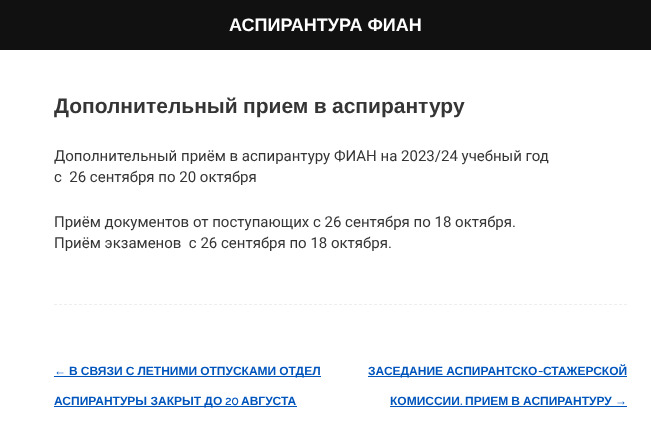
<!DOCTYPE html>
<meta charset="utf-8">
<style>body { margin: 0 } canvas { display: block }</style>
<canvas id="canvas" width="651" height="430"></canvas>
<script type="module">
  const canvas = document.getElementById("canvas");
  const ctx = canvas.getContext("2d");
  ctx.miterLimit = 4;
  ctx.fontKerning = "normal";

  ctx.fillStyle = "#ffffff";
  ctx.fillRect(0, 0, 651, 430);
  ctx.fillStyle = "#111111";
  ctx.fillRect(0, 0, 651, 50);
  ctx.font = "bold 18px Liberation Sans";
  ctx.fillStyle = "#ffffff";
  ctx.fillText("АСПИРАНТУРА ФИАН", 229, 31);
  ctx.wordSpacing = "-0.5px";
  ctx.font = "bold 21px Liberation Sans";
  ctx.fillStyle = "#353535";
  ctx.fillText("Дополнительный прием в аспирантуру", 54, 113);
  ctx.wordSpacing = "0px";
  ctx.font = "15px Roboto";
  ctx.fillText("Дополнительный приём в аспирантуру ФИАН на 2023/24 учебный год", 54, 161);
  ctx.fillText("с  26 сентября по 20 октября", 54, 182);
  ctx.fillText("Приём документов от поступающих с 26 сентября по 18 октября.", 54, 227);
  ctx.fillText("Приём экзаменов  с 26 сентября по 18 октября.", 54, 248);
  ctx.beginPath();
  ctx.moveTo(54, 304.5);
  ctx.lineTo(627, 304.5);
  ctx.strokeStyle = "#eeeeee";
  ctx.setLineDash([3, 2]);
  ctx.stroke();
  ctx.font = "bold 12px Liberation Sans";
  ctx.fillStyle = "#0055bd";
  ctx.fillText("←", 54, 375);
  ctx.fillRect(54, 376, 267, 1);
  ctx.wordSpacing = "-0.25px";
  ctx.fillText("В СВЯЗИ С ЛЕТНИМИ ОТПУСКАМИ ОТДЕЛ", 69, 375);
  ctx.fillRect(54, 406, 243, 1);
  ctx.wordSpacing = "0px";
  ctx.fillText("АСПИРАНТУРЫ ЗАКРЫТ ДО", 54, 405);
  ctx.font = "bold 12px Raleway";
  ctx.fillText("20", 225, 405);
  ctx.font = "bold 12px Liberation Sans";
  ctx.fillText("АВГУСТА", 241, 405);
  ctx.fillRect(368, 376, 259, 1);
  ctx.wordSpacing = "-0.25px";
  ctx.fillText("ЗАСЕДАНИЕ АСПИРАНТСКО", 368, 375);
  ctx.wordSpacing = "0px";
  ctx.font = "bold 12px Raleway";
  ctx.fillText("-", 538, 375);
  ctx.font = "bold 12px Liberation Sans";
  ctx.fillText("СТАЖЕРСКОЙ", 543, 375);
  ctx.fillText("КОМИССИИ", 390, 405);
  ctx.font = "bold 12px Raleway";
  ctx.fillText(".", 460, 405);
  ctx.fillRect(390, 406, 237, 1);
  ctx.wordSpacing = "-0.25px";
  ctx.font = "bold 12px Liberation Sans";
  ctx.fillText("ПРИЕМ В АСПИРАНТУРУ", 465, 405);
  ctx.wordSpacing = "0px";
  ctx.fillText("→", 615, 405);
</script>
